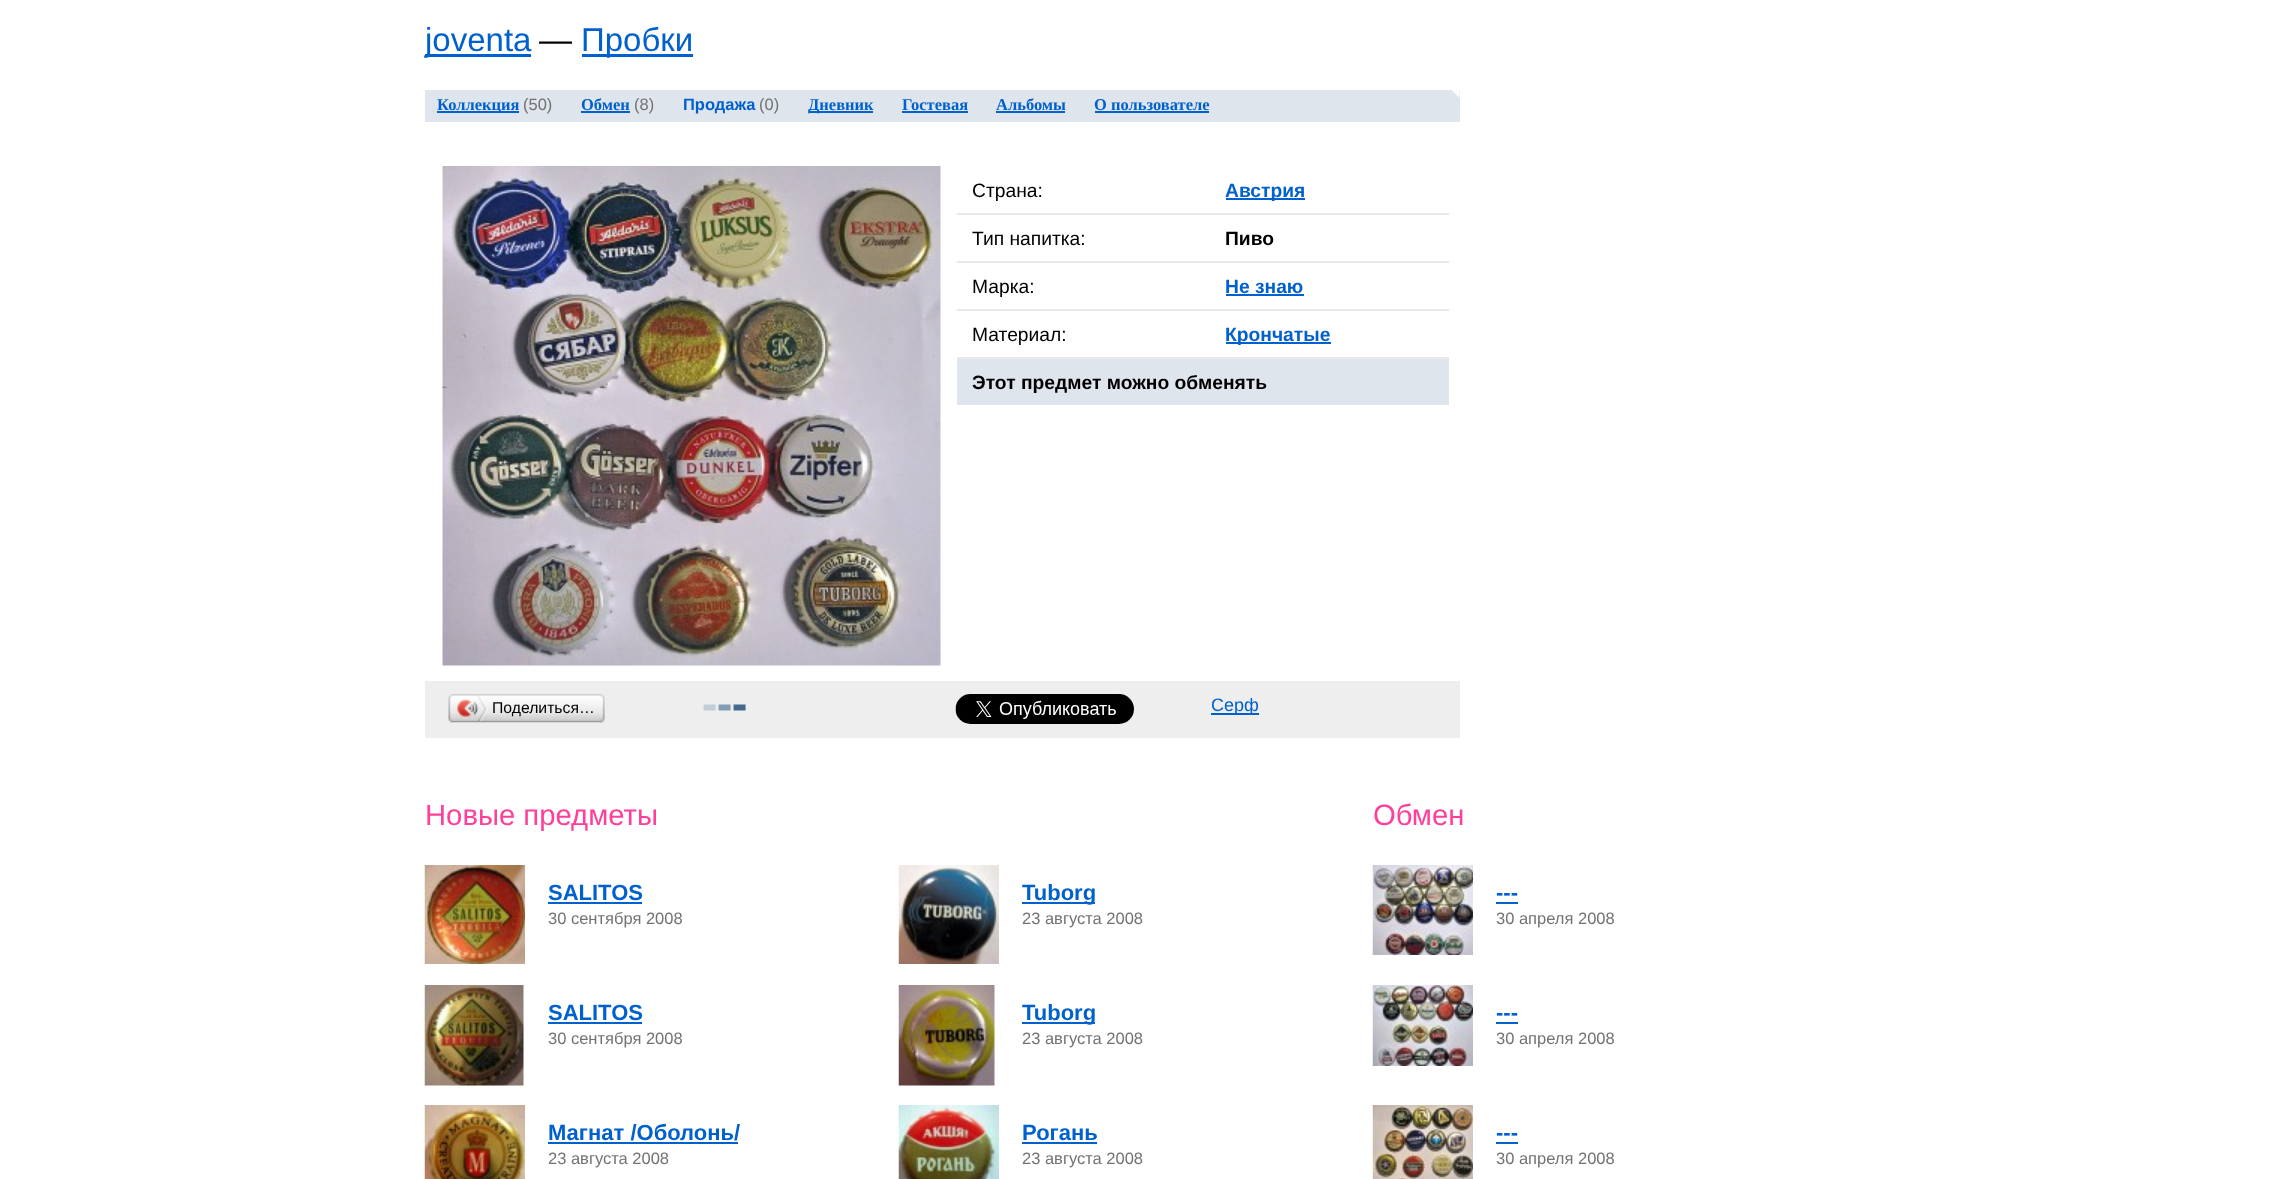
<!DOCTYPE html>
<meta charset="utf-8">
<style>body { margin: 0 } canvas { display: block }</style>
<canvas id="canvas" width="2273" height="1179"></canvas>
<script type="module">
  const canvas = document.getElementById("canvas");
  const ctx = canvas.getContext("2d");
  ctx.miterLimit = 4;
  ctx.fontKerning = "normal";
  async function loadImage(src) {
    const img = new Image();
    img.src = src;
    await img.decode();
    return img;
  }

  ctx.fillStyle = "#ffffff";
  ctx.fillRect(0, 0, 2273, 1179);
  ctx.fillStyle = "#0061ce";
  ctx.fillRect(425, 54, 106, 3);
  ctx.font = "33px Liberation Sans";
  ctx.fillText("joventa", 425, 51);
  ctx.fillStyle = "#000000";
  ctx.fillText("—", 539, 51);
  ctx.fillStyle = "#0061ce";
  ctx.fillRect(582, 54, 111, 3);
  ctx.fillText("Пробки", 581, 51);
  ctx.fillStyle = "#dfe5ec";
  ctx.fillRect(425, 90, 1035, 32);
  ctx.drawImage(await loadImage("img1.png"), 1452, 90, 8, 7);
  ctx.fillStyle = "#0061ce";
  ctx.fillRect(437, 111, 82, 2);
  ctx.font = "bold 16.5px Liberation Serif";
  ctx.fillText("Коллекция", 437, 110);
  ctx.font = "16.5px Liberation Sans";
  ctx.fillStyle = "#727272";
  ctx.fillText("(50)", 523, 110);
  ctx.font = "bold 16.5px Liberation Serif";
  ctx.fillStyle = "#0061ce";
  ctx.fillText("Обмен", 581, 110);
  ctx.fillRect(581, 111, 49, 2);
  ctx.font = "16.5px Liberation Sans";
  ctx.fillStyle = "#727272";
  ctx.fillText("(8)", 634, 110);
  ctx.font = "bold 16.5px Liberation Sans";
  ctx.fillStyle = "#0061ce";
  ctx.fillText("Продажа", 683, 110);
  ctx.font = "16.5px Liberation Sans";
  ctx.fillStyle = "#727272";
  ctx.fillText("(0)", 759, 110);
  ctx.fillStyle = "#0061ce";
  ctx.fillRect(809, 111, 64, 2);
  ctx.font = "bold 16.5px Liberation Serif";
  ctx.fillText("Дневник", 808, 110);
  ctx.fillText("Гостевая", 902, 110);
  ctx.fillRect(902, 111, 66, 2);
  ctx.fillText("Альбомы", 996, 110);
  ctx.fillRect(996, 111, 69, 2);
  ctx.fillText("О пользователе", 1094, 110);
  ctx.fillRect(1095, 111, 114, 2);
  ctx.drawImage(await loadImage("img2.png"), 442, 166, 499, 500);
  ctx.fillStyle = "#e9e9e9";
  ctx.fillRect(957, 213, 492, 2);
  ctx.font = "19.25px Liberation Sans";
  ctx.fillStyle = "#000000";
  ctx.fillText("Страна:", 972, 197);
  ctx.fillStyle = "#0061ce";
  ctx.fillRect(1226, 198, 79, 2);
  ctx.font = "bold 19.25px Liberation Sans";
  ctx.fillText("Австрия", 1225, 197);
  ctx.fillStyle = "#e9e9e9";
  ctx.fillRect(957, 261, 492, 2);
  ctx.font = "19.25px Liberation Sans";
  ctx.fillStyle = "#000000";
  ctx.fillText("Тип напитка:", 972, 245);
  ctx.font = "bold 19.25px Liberation Sans";
  ctx.fillText("Пиво", 1225, 245);
  ctx.fillStyle = "#e9e9e9";
  ctx.fillRect(957, 309, 492, 2);
  ctx.font = "19.25px Liberation Sans";
  ctx.fillStyle = "#000000";
  ctx.fillText("Марка:", 972, 293);
  ctx.font = "bold 19.25px Liberation Sans";
  ctx.fillStyle = "#0061ce";
  ctx.fillText("Не знаю", 1225, 293);
  ctx.fillRect(1226, 294, 78, 2);
  ctx.fillStyle = "#e9e9e9";
  ctx.fillRect(957, 357, 492, 2);
  ctx.font = "19.25px Liberation Sans";
  ctx.fillStyle = "#000000";
  ctx.fillText("Материал:", 972, 341);
  ctx.fillStyle = "#0061ce";
  ctx.fillRect(1226, 342, 105, 2);
  ctx.font = "bold 19.25px Liberation Sans";
  ctx.fillText("Крончатые", 1225, 341);
  ctx.fillStyle = "#dfe5ec";
  ctx.fillRect(957, 359, 492, 46);
  ctx.fillStyle = "#000000";
  ctx.fillText("Этот предмет можно обменять", 972, 389);
  ctx.fillStyle = "#eeeeee";
  ctx.fillRect(425, 681, 1035, 57);
  ctx.drawImage(await loadImage("img3.png"), 453, 694, 147, 29);
  ctx.drawImage(await loadImage("img4.png"), 448, 694, 5, 29);
  ctx.drawImage(await loadImage("img5.png"), 457, 695, 31, 26);
  ctx.font = "15.75px Liberation Sans";
  ctx.fillStyle = "#000000";
  ctx.fillText("Поделиться…", 492, 713);
  ctx.drawImage(await loadImage("img6.png"), 600, 694, 5, 29);
  ctx.drawImage(await loadImage("img7.png"), 703, 704, 43, 7);
  ctx.drawImage(await loadImage("img8.png"), 955, 694, 179, 30);
  ctx.fillStyle = "#0061ce";
  ctx.fillRect(1211, 713, 48, 2);
  ctx.font = "18px Liberation Sans";
  ctx.fillText("Серф", 1211, 711);
  ctx.font = "29.25px Liberation Sans";
  ctx.fillStyle = "#ff409a";
  ctx.fillText("Новые предметы", 425, 825);
  ctx.drawImage(await loadImage("img9.png"), 424, 865, 101, 99);
  ctx.font = "bold 22px Liberation Sans";
  ctx.fillStyle = "#0061ce";
  ctx.fillText("SALITOS", 548, 900);
  ctx.fillRect(548, 902, 94, 2);
  ctx.font = "16.5px Liberation Sans";
  ctx.fillStyle = "#727272";
  ctx.fillText("30 сентября 2008", 548, 924);
  ctx.drawImage(await loadImage("img10.png"), 424, 985, 100, 101);
  ctx.font = "bold 22px Liberation Sans";
  ctx.fillStyle = "#0061ce";
  ctx.fillText("SALITOS", 548, 1020);
  ctx.fillRect(548, 1022, 94, 2);
  ctx.font = "16.5px Liberation Sans";
  ctx.fillStyle = "#727272";
  ctx.fillText("30 сентября 2008", 548, 1044);
  ctx.drawImage(await loadImage("img11.png"), 424, 1105, 101, 74);
  ctx.font = "bold 22px Liberation Sans";
  ctx.fillStyle = "#0061ce";
  ctx.fillText("Магнат /Оболонь/", 548, 1140);
  ctx.fillRect(548, 1142, 190, 2);
  ctx.font = "16.5px Liberation Sans";
  ctx.fillStyle = "#727272";
  ctx.fillText("23 августа 2008", 548, 1164);
  ctx.drawImage(await loadImage("img12.png"), 898, 865, 101, 99);
  ctx.fillStyle = "#0061ce";
  ctx.fillRect(1022, 902, 73, 2);
  ctx.font = "bold 22px Liberation Sans";
  ctx.fillText("Tuborg", 1022, 900);
  ctx.font = "16.5px Liberation Sans";
  ctx.fillStyle = "#727272";
  ctx.fillText("23 августа 2008", 1022, 924);
  ctx.drawImage(await loadImage("img13.png"), 898, 985, 97, 101);
  ctx.fillStyle = "#0061ce";
  ctx.fillRect(1022, 1022, 73, 2);
  ctx.font = "bold 22px Liberation Sans";
  ctx.fillText("Tuborg", 1022, 1020);
  ctx.font = "16.5px Liberation Sans";
  ctx.fillStyle = "#727272";
  ctx.fillText("23 августа 2008", 1022, 1044);
  ctx.drawImage(await loadImage("img14.png"), 898, 1105, 101, 74);
  ctx.font = "bold 22px Liberation Sans";
  ctx.fillStyle = "#0061ce";
  ctx.fillText("Рогань", 1022, 1140);
  ctx.fillRect(1022, 1142, 75, 2);
  ctx.font = "16.5px Liberation Sans";
  ctx.fillStyle = "#727272";
  ctx.fillText("23 августа 2008", 1022, 1164);
  ctx.font = "29.25px Liberation Sans";
  ctx.fillStyle = "#ff409a";
  ctx.fillText("Обмен", 1373, 825);
  ctx.drawImage(await loadImage("img15.png"), 1372, 865, 101, 90);
  ctx.font = "bold 22px Liberation Sans";
  ctx.fillStyle = "#0061ce";
  ctx.fillText("---", 1496, 900);
  ctx.fillRect(1496, 902, 22, 2);
  ctx.font = "16.5px Liberation Sans";
  ctx.fillStyle = "#727272";
  ctx.fillText("30 апреля 2008", 1496, 924);
  ctx.drawImage(await loadImage("img16.png"), 1372, 985, 101, 81);
  ctx.font = "bold 22px Liberation Sans";
  ctx.fillStyle = "#0061ce";
  ctx.fillText("---", 1496, 1020);
  ctx.fillRect(1496, 1022, 22, 2);
  ctx.font = "16.5px Liberation Sans";
  ctx.fillStyle = "#727272";
  ctx.fillText("30 апреля 2008", 1496, 1044);
  ctx.drawImage(await loadImage("img17.png"), 1372, 1105, 101, 74);
  ctx.font = "bold 22px Liberation Sans";
  ctx.fillStyle = "#0061ce";
  ctx.fillText("---", 1496, 1140);
  ctx.fillRect(1496, 1142, 22, 2);
  ctx.font = "16.5px Liberation Sans";
  ctx.fillStyle = "#727272";
  ctx.fillText("30 апреля 2008", 1496, 1164);
</script>
